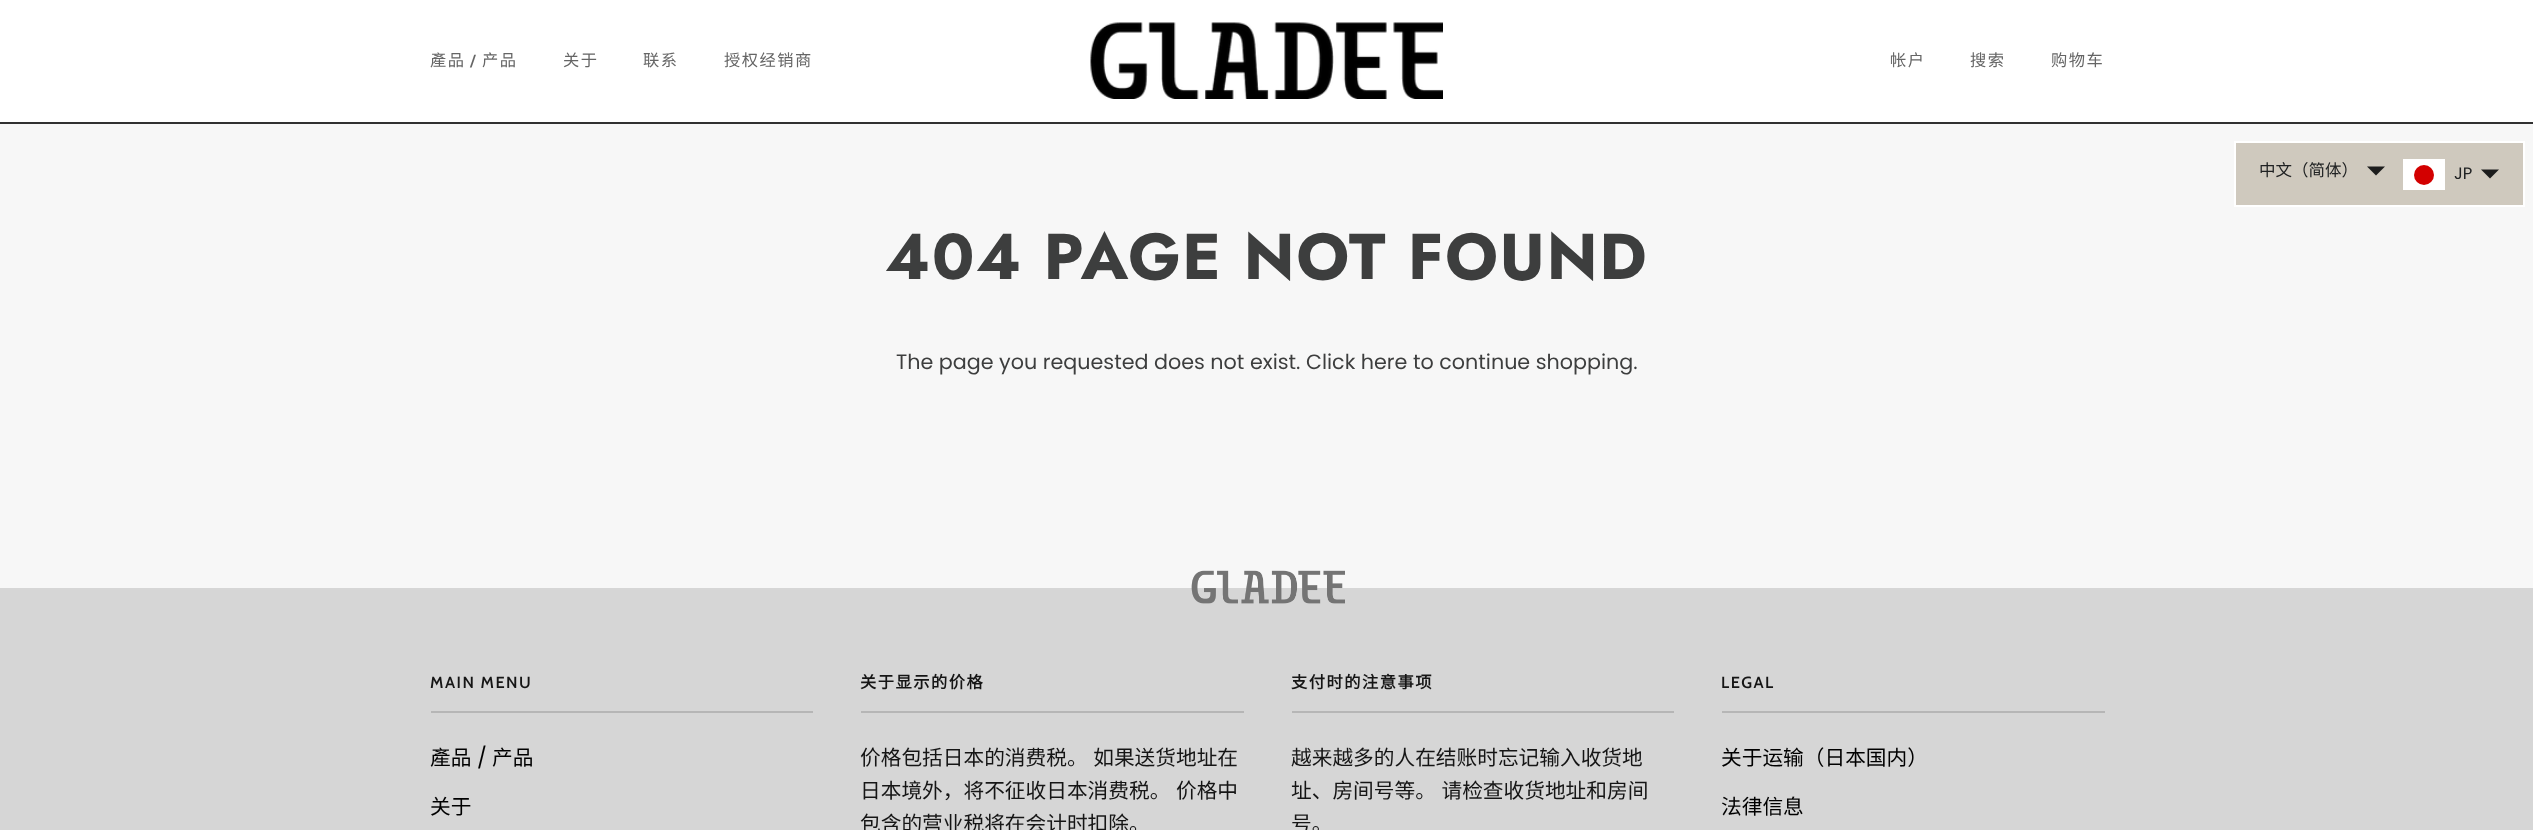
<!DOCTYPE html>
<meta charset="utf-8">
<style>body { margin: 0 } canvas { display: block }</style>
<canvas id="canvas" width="2533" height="830"></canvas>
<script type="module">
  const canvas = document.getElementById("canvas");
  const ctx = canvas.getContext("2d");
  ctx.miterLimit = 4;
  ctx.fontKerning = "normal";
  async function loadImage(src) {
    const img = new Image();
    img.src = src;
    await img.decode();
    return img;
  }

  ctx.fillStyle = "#f7f7f7";
  ctx.fillRect(0, 0, 2533, 830);
  ctx.fillStyle = "#ffffff";
  ctx.fillRect(0, 0, 2533, 122);
  ctx.fillStyle = "#313131";
  ctx.fillRect(0, 122, 2533, 2);
  ctx.letterSpacing = "1.5px";
  ctx.font = "16.25px Noto Sans CJK SC";
  ctx.fillStyle = "#656565";
  ctx.fillText("產品", 430, 66);
  ctx.font = "500 16.25px Cabin";
  ctx.fillText("/", 470, 66);
  ctx.font = "16.25px Noto Sans CJK SC";
  ctx.fillText("产品", 482, 66);
  ctx.fillText("关于", 563, 66);
  ctx.fillText("联系", 643, 66);
  ctx.fillText("授权经销商", 724, 66);
  ctx.drawImage(await loadImage("img1.png"), 1090, 22, 353, 77);
  ctx.fillText("帐户", 1890, 66);
  ctx.fillText("搜索", 1970, 66);
  ctx.fillText("购物车", 2051, 66);
  ctx.fillStyle = "#cfc9be";
  ctx.beginPath();
  ctx.rect(2235, 142, 289, 64);
  ctx.fill();
  ctx.strokeStyle = "#ffffff";
  ctx.lineWidth = 2;
  ctx.stroke();
  ctx.letterSpacing = "0px";
  ctx.font = "16.5px Noto Sans CJK SC";
  ctx.fillStyle = "#202223";
  ctx.fillText("中文（简体）", 2259, 176);
  ctx.fillStyle = "#1d1d1d";
  ctx.beginPath();
  ctx.moveTo(2367, 166.5);
  ctx.lineTo(2385, 166.5);
  ctx.lineTo(2376, 175.5);
  ctx.closePath();
  ctx.fill();
  ctx.fillStyle = "#ffffff";
  ctx.fillRect(2403, 159, 42, 31);
  ctx.fillStyle = "#d30000";
  ctx.beginPath();
  ctx.arc(2424, 175, 10, 0, Math.PI * 2);
  ctx.fill();
  ctx.font = "16.5px Poppins";
  ctx.fillStyle = "#202223";
  ctx.fillText("JP", 2454, 179);
  ctx.fillStyle = "#1d1d1d";
  ctx.beginPath();
  ctx.moveTo(2481, 169.5);
  ctx.lineTo(2499, 169.5);
  ctx.lineTo(2490, 178.5);
  ctx.closePath();
  ctx.fill();
  ctx.letterSpacing = "1.5px";
  ctx.font = "bold 64.7px Jost";
  ctx.fillStyle = "#3d3e3e";
  ctx.fillText("404 PAGE NOT FOUND", 885, 279);
  ctx.letterSpacing = "0px";
  ctx.font = "20.7px Poppins";
  ctx.fillText("The page you requested does not exist. Click here to continue shopping.", 896, 369);
  ctx.fillStyle = "#d6d6d6";
  ctx.fillRect(0, 588, 2533, 242);
  ctx.drawImage(await loadImage("img2.png"), 1191, 570, 154, 34);
  ctx.fillStyle = "#b6b6b6";
  ctx.fillRect(431, 711, 382, 2);
  ctx.letterSpacing = "1.5px";
  ctx.font = "600 16.25px Cabin";
  ctx.fillStyle = "#151515";
  ctx.fillText("MAIN MENU", 430, 688);
  ctx.letterSpacing = "0px";
  ctx.font = "20.7px Noto Sans CJK SC";
  ctx.fillStyle = "#000000";
  ctx.fillText("產品", 430, 765);
  ctx.font = "20.7px Poppins";
  ctx.fillText("/", 477, 765);
  ctx.font = "20.7px Noto Sans CJK SC";
  ctx.fillText("产品", 492, 765);
  ctx.fillText("关于", 430, 814);
  ctx.fillStyle = "#b6b6b6";
  ctx.fillRect(861, 711, 383, 2);
  ctx.letterSpacing = "1.5px";
  ctx.font = "bold 16.25px Noto Sans CJK SC";
  ctx.fillStyle = "#151515";
  ctx.fillText("关于显示的价格", 860, 688);
  ctx.letterSpacing = "0px";
  ctx.wordSpacing = "1px";
  ctx.font = "20.7px Noto Sans CJK SC";
  ctx.fillText("价格包括日本的消费税。 如果送货地址在", 860, 765);
  ctx.fillText("日本境外，将不征收日本消费税。 价格中", 860, 798);
  ctx.wordSpacing = "0px";
  ctx.fillText("包含的营业税将在会计时扣除。", 860, 831);
  ctx.fillStyle = "#b6b6b6";
  ctx.fillRect(1292, 711, 382, 2);
  ctx.letterSpacing = "1.5px";
  ctx.font = "bold 16.25px Noto Sans CJK SC";
  ctx.fillStyle = "#151515";
  ctx.fillText("支付时的注意事项", 1291, 688);
  ctx.letterSpacing = "0px";
  ctx.font = "20.7px Noto Sans CJK SC";
  ctx.fillText("越来越多的人在结账时忘记输入收货地", 1291, 765);
  ctx.wordSpacing = "1px";
  ctx.fillText("址、房间号等。 请检查收货地址和房间", 1291, 798);
  ctx.wordSpacing = "0px";
  ctx.fillText("号。", 1291, 831);
  ctx.fillStyle = "#b6b6b6";
  ctx.fillRect(1722, 711, 383, 2);
  ctx.letterSpacing = "1.5px";
  ctx.font = "600 16.25px Cabin";
  ctx.fillStyle = "#151515";
  ctx.fillText("LEGAL", 1721, 688);
  ctx.letterSpacing = "0px";
  ctx.font = "20.7px Noto Sans CJK SC";
  ctx.fillStyle = "#000000";
  ctx.fillText("关于运输（日本国内）", 1721, 765);
  ctx.fillText("法律信息", 1721, 814);
</script>
